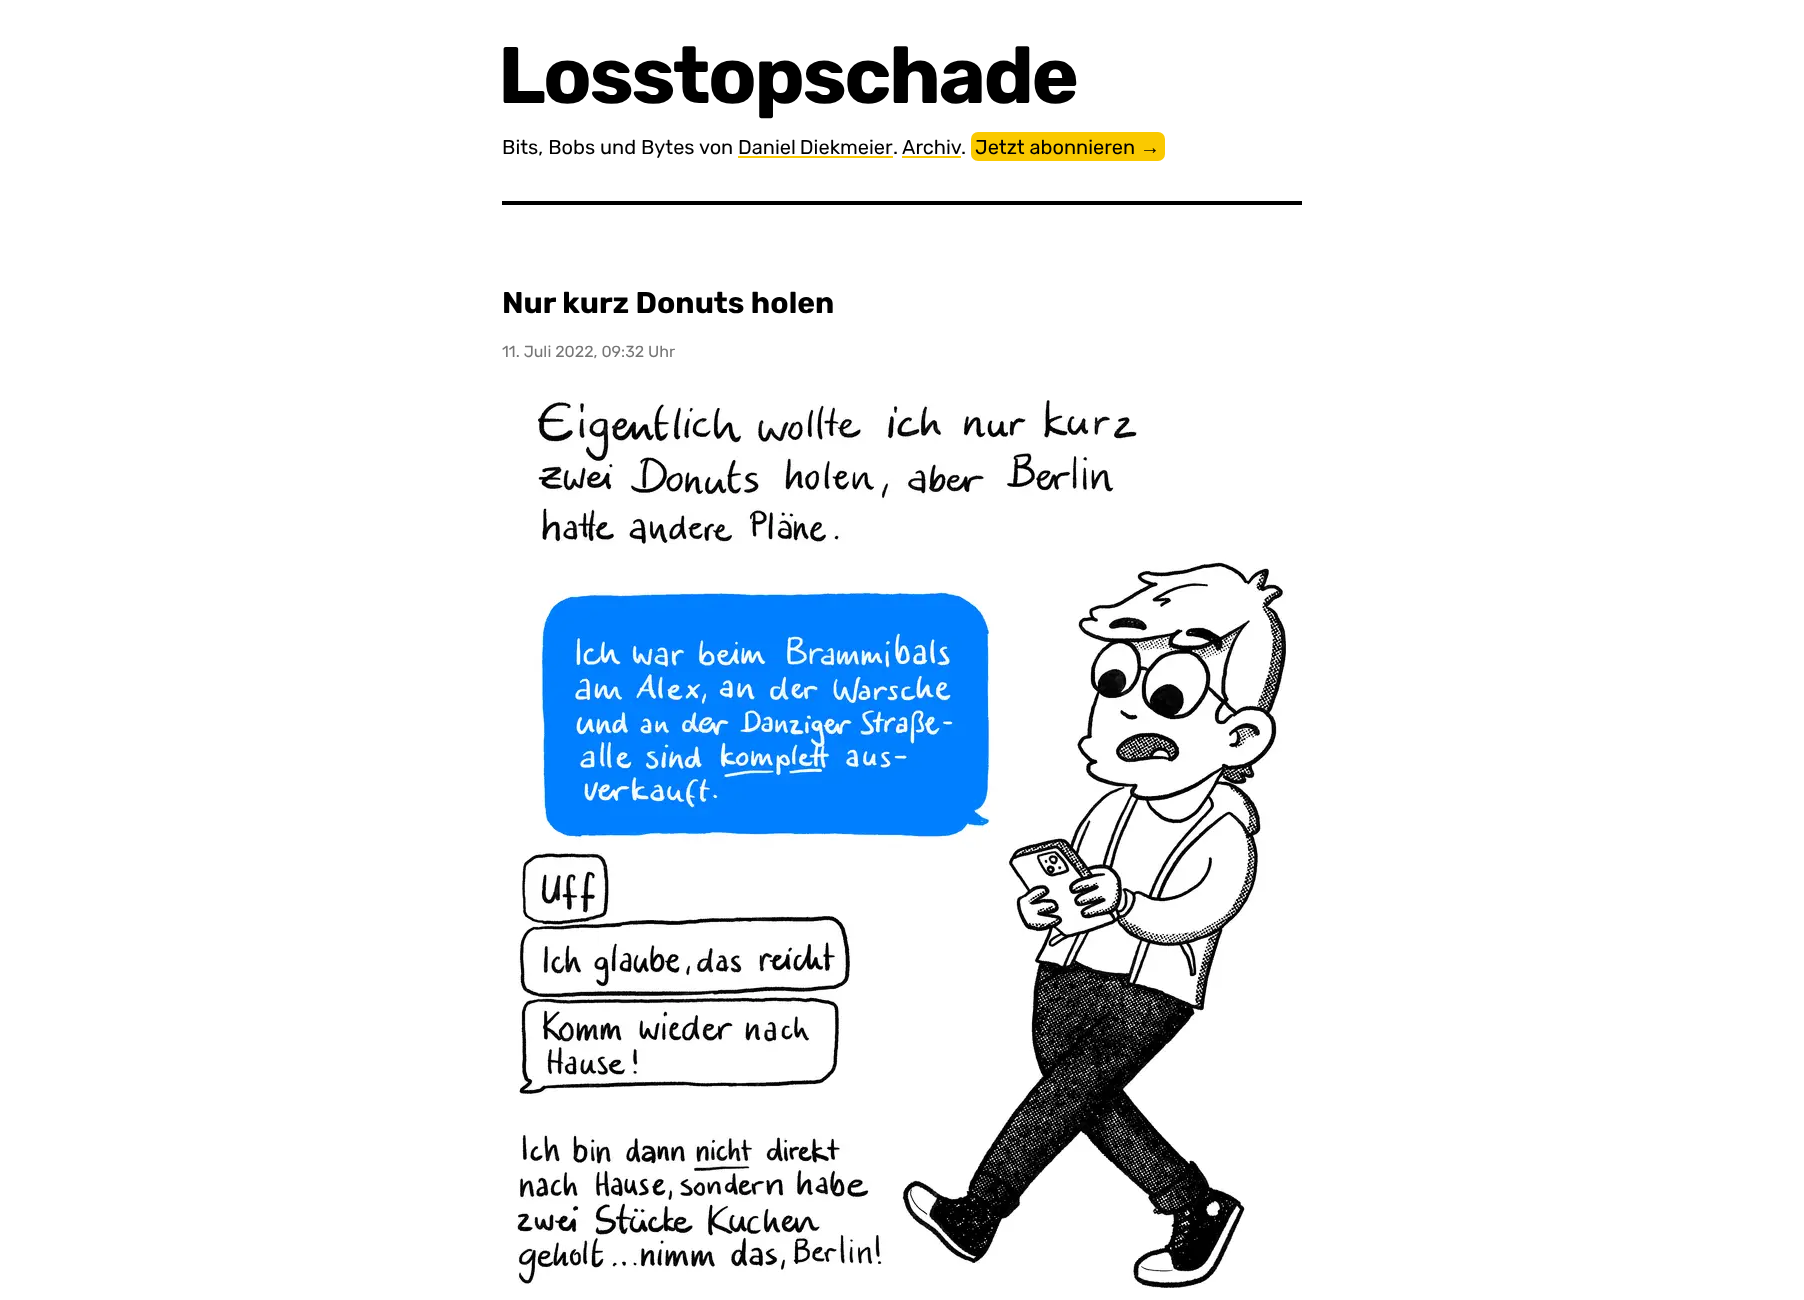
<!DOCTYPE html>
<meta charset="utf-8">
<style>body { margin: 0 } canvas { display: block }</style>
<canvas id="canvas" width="1804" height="1300"></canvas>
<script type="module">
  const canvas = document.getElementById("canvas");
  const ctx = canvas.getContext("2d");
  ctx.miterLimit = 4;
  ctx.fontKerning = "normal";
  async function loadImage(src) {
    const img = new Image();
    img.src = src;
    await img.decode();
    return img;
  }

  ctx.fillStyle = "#ffffff";
  ctx.fillRect(0, 0, 1804, 1300);
  ctx.fillStyle = "#000000";
  ctx.fillRect(502, 201, 800, 4);
  ctx.letterSpacing = "-2.4px";
  ctx.font = "300 80px Rubik";
  ctx.fillText("Losstopschade", 498, 103);
  ctx.letterSpacing = "0px";
  ctx.font = "300 20px 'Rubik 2'";
  ctx.fillText("Bits, Bobs und Bytes von", 502, 154);
  ctx.wordSpacing = "-1px";
  ctx.fillText("Daniel Diekmeier", 738, 154);
  ctx.fillStyle = "#fac900";
  ctx.fillRect(738, 156, 155, 2);
  ctx.wordSpacing = "0px";
  ctx.fillStyle = "#000000";
  ctx.fillText(".", 893, 154);
  ctx.fillText("Archiv", 902, 154);
  ctx.fillStyle = "#fac900";
  ctx.fillRect(902, 156, 59, 2);
  ctx.fillStyle = "#000000";
  ctx.fillText(".", 961, 154);
  ctx.fillStyle = "#fac900";
  ctx.beginPath();
  ctx.roundRect(971, 132, 194, 29, 7);
  ctx.fill();
  ctx.fillStyle = "#000000";
  ctx.fillText("Jetzt abonnieren", 975, 154);
  ctx.font = "20px Liberation Sans";
  ctx.fillText("→", 1140, 154);
  ctx.font = "300 30px Rubik";
  ctx.fillText("Nur kurz Donuts holen", 502, 313);
  ctx.font = "300 16px 'Rubik 2'";
  ctx.fillStyle = "#767676";
  ctx.fillText("11. Juli 2022, 09:32 Uhr", 502, 357);
  ctx.drawImage(await loadImage("img1.png"), 515, 400, 771, 888);
</script>
